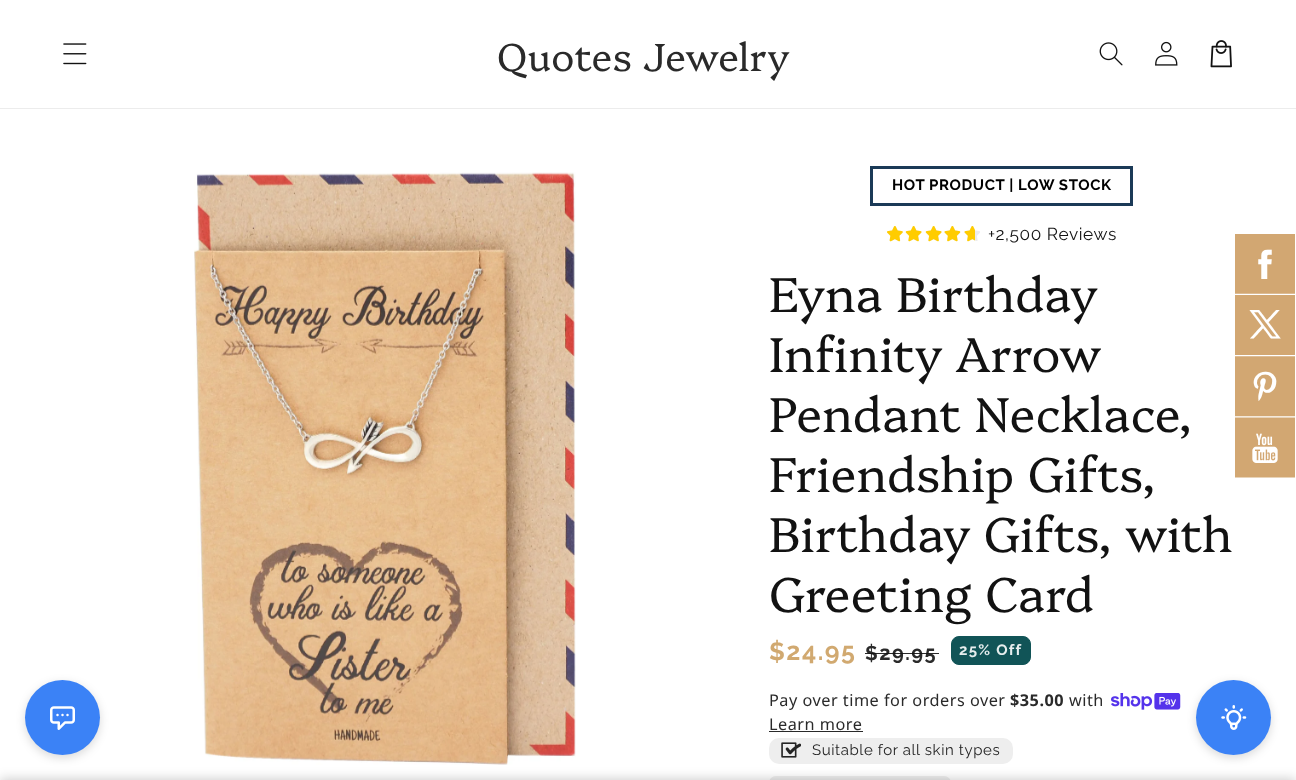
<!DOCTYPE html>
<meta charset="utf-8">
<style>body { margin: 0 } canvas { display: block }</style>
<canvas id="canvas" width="1296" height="780"></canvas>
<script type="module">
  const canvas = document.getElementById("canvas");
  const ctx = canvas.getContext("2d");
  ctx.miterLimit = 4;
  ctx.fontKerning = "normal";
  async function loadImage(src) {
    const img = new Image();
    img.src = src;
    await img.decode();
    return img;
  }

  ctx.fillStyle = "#ffffff";
  ctx.fillRect(0, 0, 1296, 780);
  ctx.fillStyle = "#ececec";
  ctx.fillRect(0, 108, 1296, 1);
  ctx.drawImage(await loadImage("img1.png"), 63, 43, 24, 22);
  ctx.letterSpacing = "0.3px";
  ctx.font = "300 39px Platypi";
  ctx.fillStyle = "#2a2a2a";
  ctx.fillText("Quotes Jewelry", 497, 71);
  ctx.drawImage(await loadImage("img2.png"), 1099, 42, 24, 24);
  ctx.drawImage(await loadImage("img3.png"), 1155, 41, 23, 25);
  ctx.drawImage(await loadImage("img4.png"), 1210, 40, 22, 28);
  ctx.drawImage(await loadImage("img5.png"), 194, 172, 382, 593);
  ctx.strokeStyle = "#1b3a57";
  ctx.lineWidth = 3;
  ctx.strokeRect(871.5, 167.5, 260, 37);
  ctx.letterSpacing = "0.6px";
  ctx.font = "bold 15px Raleway";
  ctx.fillStyle = "#000000";
  ctx.fillText("HOT PRODUCT | LOW STOCK", 892, 190);
  ctx.drawImage(await loadImage("img6.png"), 887, 226, 16, 16);
  ctx.drawImage(await loadImage("img7.png"), 887, 226, 16, 16);
  ctx.drawImage(await loadImage("img11.png"), 906, 226, 16, 15);
  ctx.drawImage(await loadImage("img8.png"), 905, 226, 17, 16);
  ctx.drawImage(await loadImage("img11.png"), 926, 226, 16, 15);
  ctx.drawImage(await loadImage("img8.png"), 925, 226, 17, 16);
  ctx.drawImage(await loadImage("img12.png"), 944, 226, 16, 15);
  ctx.drawImage(await loadImage("img9.png"), 944, 226, 17, 16);
  ctx.drawImage(await loadImage("img12.png"), 964, 226, 16, 15);
  ctx.drawImage(await loadImage("img10.png"), 964, 226, 11, 16);
  ctx.font = "17.25px Raleway";
  ctx.fillStyle = "#121212";
  ctx.fillText("+2,500 Reviews", 988, 240);
  ctx.letterSpacing = "0.3px";
  ctx.font = "300 48.75px Platypi";
  ctx.fillText("Eyna Birthday", 769, 312);
  ctx.fillText("Infinity Arrow", 769, 372);
  ctx.fillText("Pendant Necklace,", 769, 432);
  ctx.fillText("Friendship Gifts,", 769, 492);
  ctx.fillText("Birthday Gifts, with", 769, 552);
  ctx.fillText("Greeting Card", 769, 612);
  ctx.letterSpacing = "1.5px";
  ctx.font = "bold 25px Raleway";
  ctx.fillStyle = "#d1a970";
  ctx.fillText("$24.95", 769, 660);
  ctx.font = "bold 20px Raleway";
  ctx.fillStyle = "#2a2a2a";
  ctx.fillText("$29.95", 865, 660);
  ctx.fillStyle = "rgba(18, 18, 18, 0.9)";
  ctx.fillRect(865, 653, 74, 1);
  ctx.fillStyle = "#115457";
  ctx.beginPath();
  ctx.roundRect(951.5, 636.5, 79, 28, 7.5);
  ctx.fill();
  ctx.strokeStyle = "#115457";
  ctx.lineWidth = 1;
  ctx.stroke();
  ctx.letterSpacing = "1.25px";
  ctx.font = "bold 15px Raleway";
  ctx.fillStyle = "#e7eeee";
  ctx.fillText("25% Off", 959, 655);
  ctx.letterSpacing = "0.5px";
  ctx.font = "16.25px Noto Sans";
  ctx.fillStyle = "#2a2a2a";
  ctx.fillText("Pay over time for orders over", 769, 706);
  ctx.font = "bold 16.25px Noto Sans";
  ctx.fillText("$35.00", 1010, 706);
  ctx.font = "16.25px Noto Sans";
  ctx.fillText("with", 1069, 706);
  ctx.drawImage(await loadImage("img13.png"), 1111, 693, 70, 17);
  ctx.fillText("Learn more", 769, 730);
  ctx.fillRect(769, 731, 94, 1);
  ctx.fillStyle = "#eeeeee";
  ctx.beginPath();
  ctx.roundRect(769, 738, 244, 26, 10);
  ctx.fill();
  ctx.drawImage(await loadImage("img14.png"), 781, 742, 20, 16);
  ctx.letterSpacing = "0.6px";
  ctx.font = "15px Raleway";
  ctx.fillStyle = "#242424";
  ctx.fillText("Suitable for all skin types", 812, 755);
  ctx.fillStyle = "#eeeeee";
  ctx.beginPath();
  ctx.roundRect(769, 776, 182, 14, 10);
  ctx.fill();
  ctx.fillStyle = "rgba(0, 0, 0, 0.2)";
  ctx.filter = "blur(6px)";
  ctx.beginPath();
  ctx.rect(0, 779, 1296, 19);
  ctx.fill();
  ctx.filter = "none";
  ctx.drawImage(await loadImage("img15.png"), 1235, 234, 60, 244);
  ctx.fillStyle = "rgba(0, 0, 0, 0.15)";
  ctx.filter = "blur(5px)";
  ctx.beginPath();
  ctx.roundRect(25, 683, 75, 75, 37.5);
  ctx.fill();
  ctx.filter = "none";
  ctx.fillStyle = "#3b82f6";
  ctx.beginPath();
  ctx.arc(62.5, 717.5, 37.5, 0, Math.PI * 2);
  ctx.fill();
  ctx.drawImage(await loadImage("img16.png"), 50, 706, 25, 24);
  ctx.fillStyle = "rgba(0, 0, 0, 0.15)";
  ctx.filter = "blur(5px)";
  ctx.beginPath();
  ctx.roundRect(1196, 683, 75, 75, 37.5);
  ctx.fill();
  ctx.filter = "none";
  ctx.fillStyle = "#3b82f6";
  ctx.beginPath();
  ctx.arc(1233.5, 717.5, 37.5, 0, Math.PI * 2);
  ctx.fill();
  ctx.drawImage(await loadImage("img17.png"), 1221, 705, 26, 25);
</script>
